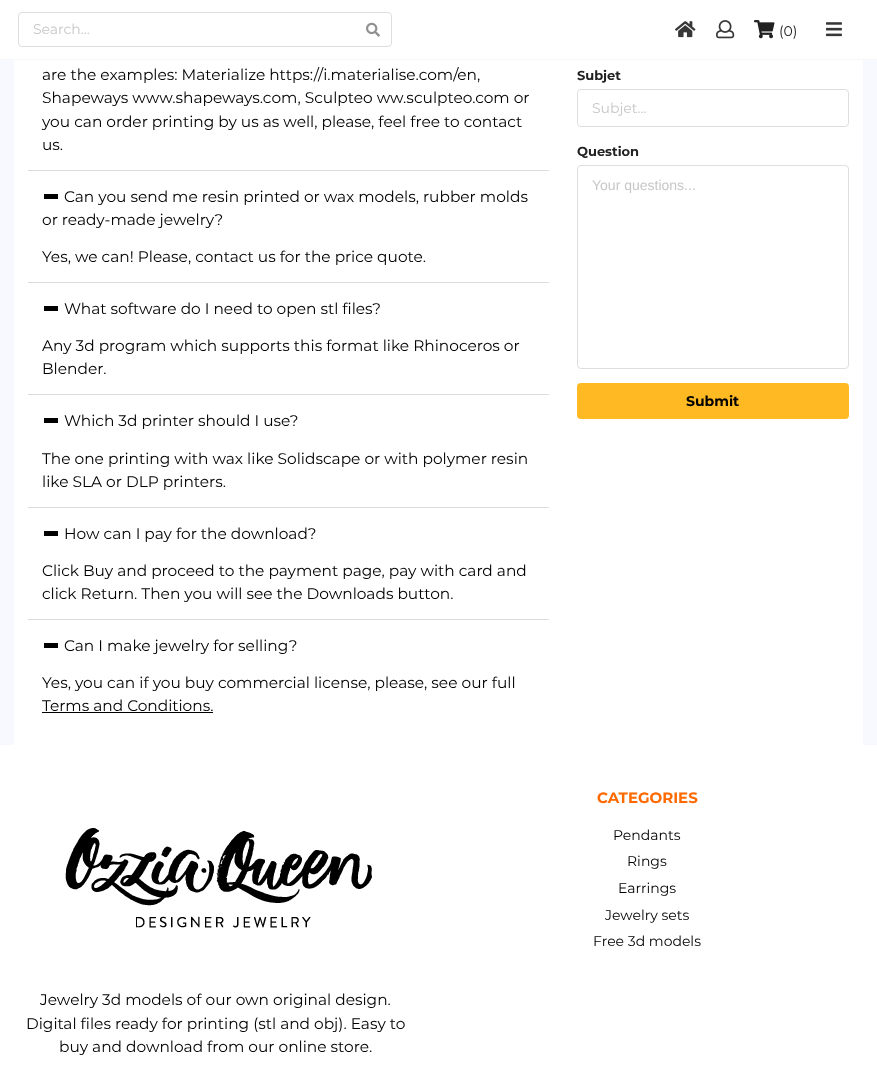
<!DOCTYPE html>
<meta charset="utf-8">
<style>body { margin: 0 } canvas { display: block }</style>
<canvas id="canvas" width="877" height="1071"></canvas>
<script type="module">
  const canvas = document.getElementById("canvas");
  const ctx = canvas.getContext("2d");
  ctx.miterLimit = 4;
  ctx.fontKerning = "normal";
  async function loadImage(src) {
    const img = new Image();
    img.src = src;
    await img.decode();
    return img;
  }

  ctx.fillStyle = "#ffffff";
  ctx.fillRect(0, 0, 877, 1071);
  ctx.fillStyle = "#f6f6f6";
  ctx.fillRect(0, 59, 877, 1);
  ctx.beginPath();
  ctx.roundRect(18.5, 12.5, 373, 34, 3.5);
  ctx.strokeStyle = "#dedede";
  ctx.stroke();
  ctx.font = "14px Montserrat";
  ctx.fillStyle = "#c7c7c7";
  ctx.fillText("Search...", 33, 34);
  ctx.drawImage(await loadImage("img1.png"), 366, 22, 14, 15);
  ctx.drawImage(await loadImage("img2.png"), 675, 21, 21, 17);
  ctx.drawImage(await loadImage("img3.png"), 716, 20, 19, 19);
  ctx.drawImage(await loadImage("img4.png"), 754, 20, 21, 19);
  ctx.fillStyle = "#212121";
  ctx.fillText("(0)", 779, 36);
  ctx.drawImage(await loadImage("img5.png"), 826, 22, 16, 15);
  ctx.fillStyle = "#f8f8ff";
  ctx.fillRect(0, 60, 877, 685);
  ctx.fillStyle = "#ffffff";
  ctx.fillRect(14, 60, 849, 685);
  ctx.fillStyle = "#dcdcdc";
  ctx.fillRect(28, 170, 521, 1);
  ctx.font = "15.4px Montserrat";
  ctx.fillStyle = "#000000";
  ctx.fillText("are the examples: Materialize https://i.materialise.com/en,", 42, 80);
  ctx.fillText("Shapeways www.shapeways.com, Sculpteo ww.sculpteo.com or", 42, 103);
  ctx.fillText("you can order printing by us as well, please, feel free to contact", 42, 127);
  ctx.fillText("us.", 42, 150);
  ctx.fillStyle = "#dcdcdc";
  ctx.fillRect(28, 282, 521, 1);
  ctx.fillStyle = "#000000";
  ctx.fillRect(44, 194, 14, 5);
  ctx.fillText("Can you send me resin printed or wax models, rubber molds", 64, 202);
  ctx.fillText("or ready-made jewelry?", 42, 225);
  ctx.fillText("Yes, we can! Please, contact us for the price quote.", 42, 262);
  ctx.fillStyle = "#dcdcdc";
  ctx.fillRect(28, 394, 521, 1);
  ctx.fillStyle = "#000000";
  ctx.fillRect(44, 306, 14, 5);
  ctx.fillText("What software do I need to open stl files?", 64, 314);
  ctx.fillText("Any 3d program which supports this format like Rhinoceros or", 42, 351);
  ctx.fillText("Blender.", 42, 374);
  ctx.fillStyle = "#dcdcdc";
  ctx.fillRect(28, 507, 521, 1);
  ctx.fillStyle = "#000000";
  ctx.fillRect(44, 418, 14, 5);
  ctx.fillText("Which 3d printer should I use?", 64, 426);
  ctx.fillText("The one printing with wax like Solidscape or with polymer resin", 42, 464);
  ctx.fillText("like SLA or DLP printers.", 42, 487);
  ctx.fillStyle = "#dcdcdc";
  ctx.fillRect(28, 619, 521, 1);
  ctx.fillStyle = "#000000";
  ctx.fillRect(44, 531, 14, 5);
  ctx.fillText("How can I pay for the download?", 64, 539);
  ctx.fillText("Click Buy and proceed to the payment page, pay with card and", 42, 576);
  ctx.fillText("click Return. Then you will see the Downloads button.", 42, 599);
  ctx.fillRect(44, 643, 14, 5);
  ctx.fillText("Can I make jewelry for selling?", 64, 651);
  ctx.fillText("Yes, you can if you buy commercial license, please, see our full", 42, 688);
  ctx.fillText("Terms and Conditions.", 42, 711);
  ctx.fillRect(42, 712, 171, 1);
  ctx.font = "bold 13px Montserrat";
  ctx.fillStyle = "#212121";
  ctx.fillText("Subjet", 577, 80);
  ctx.beginPath();
  ctx.roundRect(577.5, 89.5, 271, 37, 3.5);
  ctx.stroke();
  ctx.font = "14px Montserrat";
  ctx.fillStyle = "#c7c7c7";
  ctx.fillText("Subjet...", 592, 113);
  ctx.font = "bold 13px Montserrat";
  ctx.fillStyle = "#212121";
  ctx.fillText("Question", 577, 156);
  ctx.beginPath();
  ctx.roundRect(577.5, 165.5, 271, 203, 3.5);
  ctx.stroke();
  ctx.font = "14px Liberation Sans";
  ctx.fillStyle = "#c7c7c7";
  ctx.fillText("Your questions...", 592, 190);
  ctx.fillStyle = "#ffb922";
  ctx.beginPath();
  ctx.roundRect(577, 383, 272, 36, 4);
  ctx.fill();
  ctx.font = "bold 14px Montserrat";
  ctx.fillStyle = "#000000";
  ctx.fillText("Submit", 686, 406);
  ctx.font = "bold 15px Montserrat";
  ctx.fillStyle = "#ff6a00";
  ctx.fillText("CATEGORIES", 597, 803);
  ctx.font = "14px Montserrat";
  ctx.fillStyle = "#000000";
  ctx.fillText("Pendants", 613, 840);
  ctx.fillText("Rings", 627, 866);
  ctx.fillText("Earrings", 618, 893);
  ctx.fillText("Jewelry sets", 605, 920);
  ctx.fillText("Free 3d models", 593, 946);
  ctx.drawImage(await loadImage("img6.png"), 65, 828, 307, 100);
  ctx.font = "15.4px Montserrat";
  ctx.fillText("Jewelry 3d models of our own original design.", 40, 1005);
  ctx.fillText("Digital files ready for printing (stl and obj). Easy to", 26, 1029);
  ctx.fillText("buy and download from our online store.", 59, 1052);
</script>
